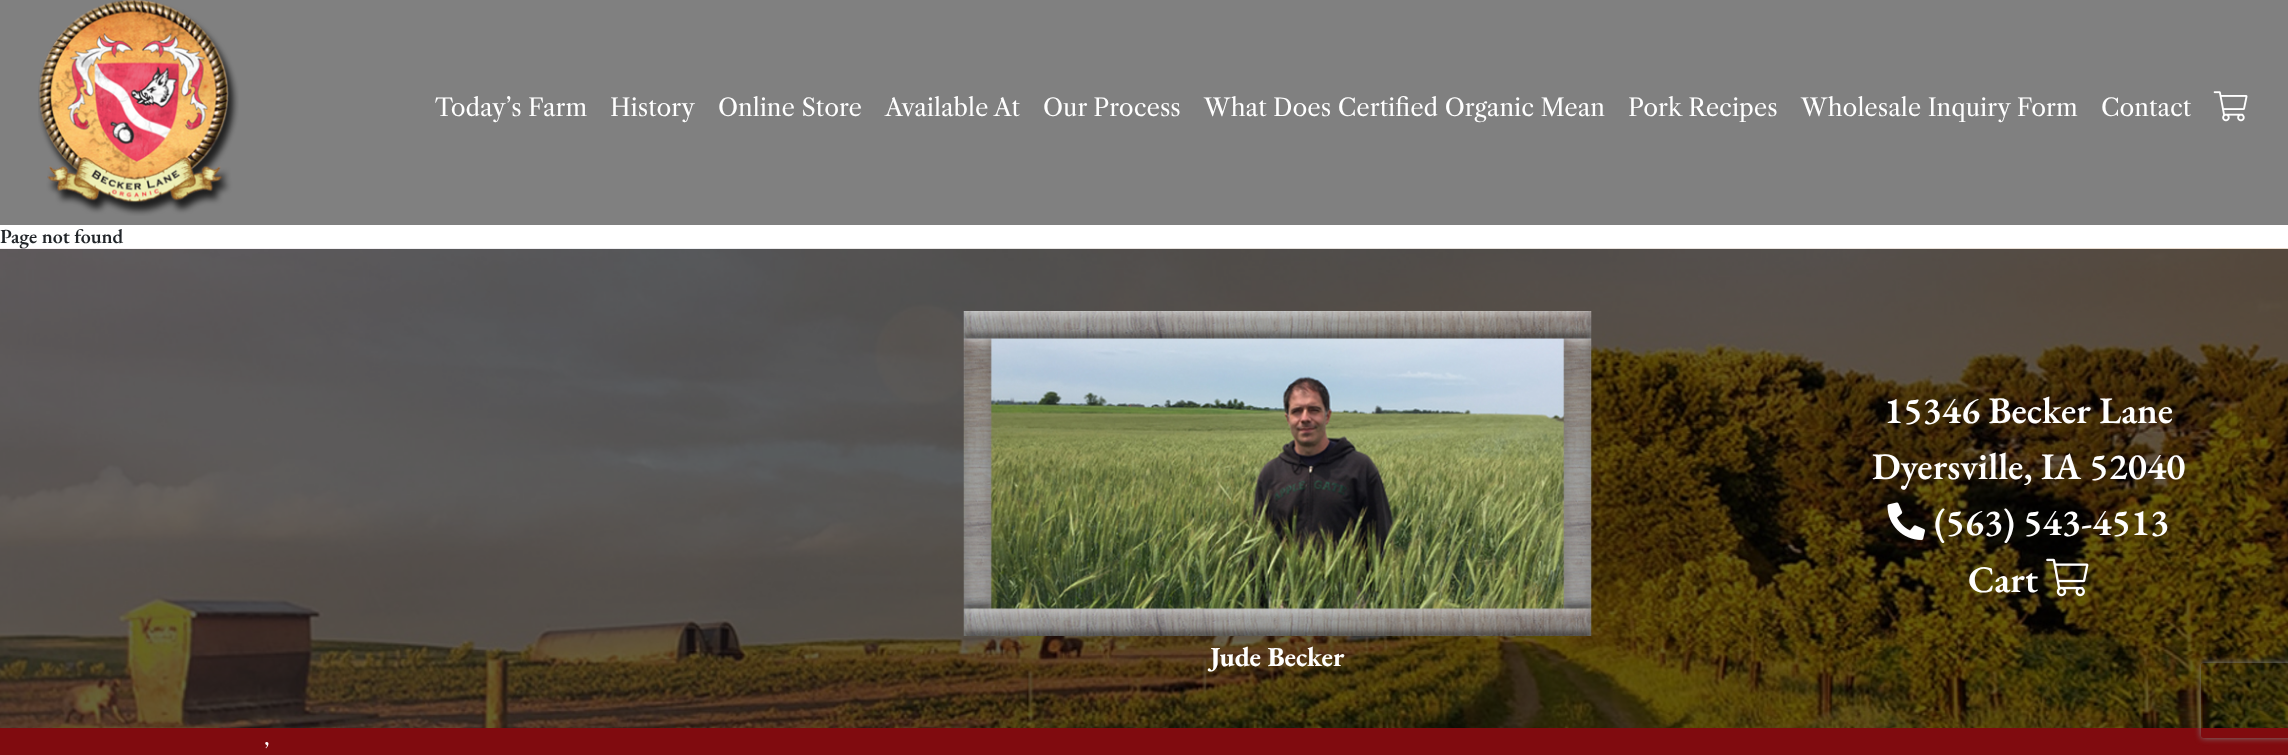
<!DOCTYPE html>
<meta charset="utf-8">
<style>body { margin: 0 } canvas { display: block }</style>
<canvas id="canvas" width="2288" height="755"></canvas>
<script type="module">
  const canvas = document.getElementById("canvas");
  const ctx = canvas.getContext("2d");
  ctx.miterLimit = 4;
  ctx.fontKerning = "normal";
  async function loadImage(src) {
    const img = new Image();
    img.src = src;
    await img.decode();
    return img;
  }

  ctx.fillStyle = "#ffffff";
  ctx.fillRect(0, 0, 2288, 755);
  ctx.fillStyle = "#808080";
  ctx.fillRect(0, 0, 2288, 225);
  ctx.drawImage(await loadImage("img1.png"), 38, 0, 201, 216);
  ctx.font = "24px Libre Caslon Text";
  ctx.fillStyle = "#ffffff";
  ctx.fillText("Today’s Farm", 435, 116);
  ctx.fillText("History", 610, 116);
  ctx.fillText("Online Store", 718, 116);
  ctx.fillText("Available At", 885, 116);
  ctx.fillText("Our Process", 1043, 116);
  ctx.fillText("What Does Certified Organic Mean", 1204, 116);
  ctx.fillText("Pork Recipes", 1628, 116);
  ctx.fillText("Wholesale Inquiry Form", 1801, 116);
  ctx.fillText("Contact", 2101, 116);
  ctx.drawImage(await loadImage("img2.png"), 2213, 91, 35, 31);
  ctx.font = "600 20px EB Garamond";
  ctx.fillStyle = "#212529";
  ctx.fillText("Page not found", 0, 243);
  ctx.drawImage(await loadImage("img3.png"), 0, 248, 2288, 480);
  ctx.font = "600 37.5px EB Garamond";
  ctx.fillStyle = "#ffffff";
  ctx.fillText("15346 Becker Lane", 1884, 423);
  ctx.fillText("Dyersville, IA 52040", 1872, 479);
  ctx.drawImage(await loadImage("img4.png"), 1887, 502, 38, 38);
  ctx.fillText("(563) 543-4513", 1934, 535);
  ctx.fillText("Cart", 1968, 592);
  ctx.drawImage(await loadImage("img5.png"), 2046, 558, 43, 39);
  ctx.drawImage(await loadImage("img6.png"), 963, 311, 629, 325);
  ctx.font = "bold 27.5px EB Garamond";
  ctx.fillText("Jude Becker", 1210, 666);
  ctx.fillStyle = "#800b0f";
  ctx.fillRect(0, 728, 2288, 27);
  ctx.font = "23px Libre Caslon Text";
  ctx.fillStyle = "#ffffff";
  ctx.fillText("’", 264, 761);
  ctx.save();
  ctx.beginPath();
  ctx.moveTo(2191, 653);
  ctx.lineTo(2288, 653);
  ctx.lineTo(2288, 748);
  ctx.lineTo(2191, 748);
  ctx.closePath();
  ctx.moveTo(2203.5, 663);
  ctx.lineTo(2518.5, 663);
  ctx.bezierCurveTo(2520, 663, 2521, 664, 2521, 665.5);
  ctx.lineTo(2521, 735.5);
  ctx.bezierCurveTo(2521, 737, 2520, 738, 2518.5, 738);
  ctx.lineTo(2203.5, 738);
  ctx.bezierCurveTo(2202, 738, 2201, 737, 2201, 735.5);
  ctx.lineTo(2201, 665.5);
  ctx.bezierCurveTo(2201, 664, 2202, 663, 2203.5, 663);
  ctx.closePath();
  ctx.clip("evenodd");
  ctx.fillStyle = "#808080";
  ctx.filter = "blur(3px)";
  ctx.beginPath();
  ctx.roundRect(2201, 663, 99, 75, 2.5);
  ctx.fill();
  ctx.filter = "none";
  ctx.restore();
</script>
